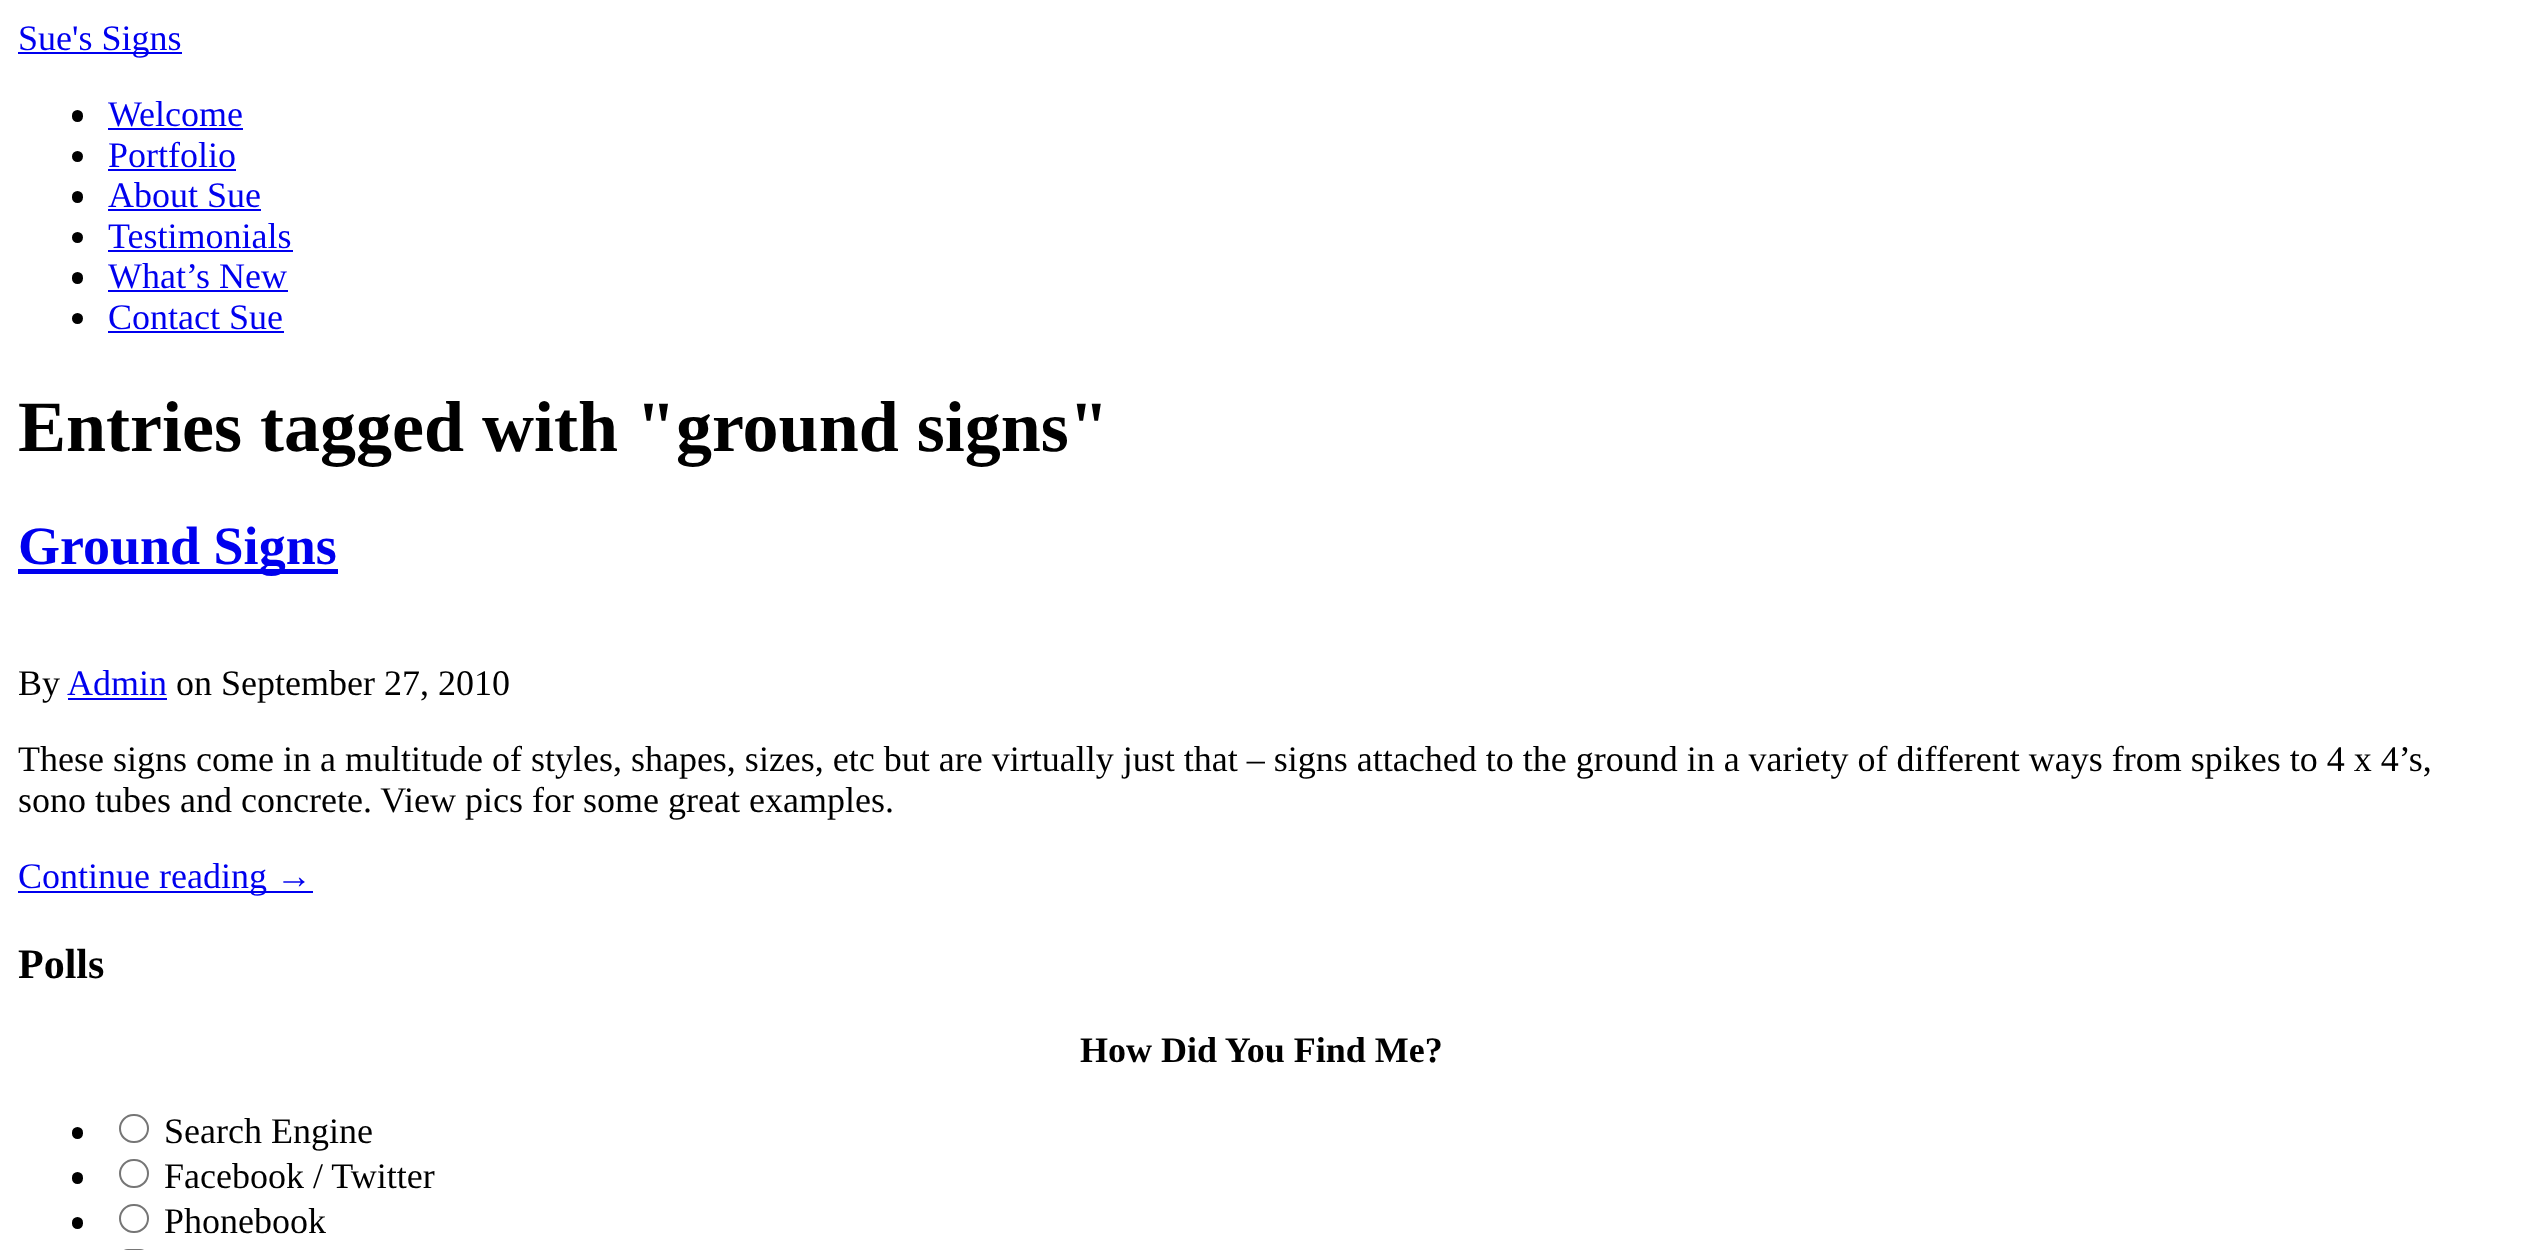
<!DOCTYPE html>
<meta charset="utf-8">
<style>body { margin: 0 } canvas { display: block }</style>
<canvas id="canvas" width="2521" height="1250"></canvas>
<script type="module">
  const canvas = document.getElementById("canvas");
  const ctx = canvas.getContext("2d");
  ctx.miterLimit = 4;
  ctx.fontKerning = "normal";

  ctx.fillStyle = "#ffffff";
  ctx.fillRect(0, 0, 2521, 1250);
  ctx.fillStyle = "#0000ee";
  ctx.fillRect(18, 52, 164, 2);
  ctx.font = "36px Liberation Serif";
  ctx.fillText("Sue's Signs", 18, 50);
  ctx.fillStyle = "#000000";
  ctx.beginPath();
  ctx.roundRect(72, 110, 11, 12, 5.5);
  ctx.fill();
  ctx.fillStyle = "#0000ee";
  ctx.fillText("Welcome", 108, 126);
  ctx.fillRect(108, 128, 135, 2);
  ctx.fillStyle = "#000000";
  ctx.beginPath();
  ctx.arc(77.5, 156.5, 5.5, 0, Math.PI * 2);
  ctx.fill();
  ctx.fillStyle = "#0000ee";
  ctx.fillText("Portfolio", 108, 167);
  ctx.fillRect(108, 169, 128, 2);
  ctx.fillStyle = "#000000";
  ctx.beginPath();
  ctx.roundRect(72, 191, 11, 12, 5.5);
  ctx.fill();
  ctx.fillStyle = "#0000ee";
  ctx.fillText("About Sue", 108, 207);
  ctx.fillRect(108, 209, 153, 2);
  ctx.fillStyle = "#000000";
  ctx.beginPath();
  ctx.arc(77.5, 237.5, 5.5, 0, Math.PI * 2);
  ctx.fill();
  ctx.fillStyle = "#0000ee";
  ctx.fillText("Testimonials", 108, 248);
  ctx.fillRect(108, 250, 185, 2);
  ctx.fillStyle = "#000000";
  ctx.beginPath();
  ctx.roundRect(72, 272, 11, 12, 5.5);
  ctx.fill();
  ctx.fillStyle = "#0000ee";
  ctx.fillText("What’s New", 108, 288);
  ctx.fillRect(108, 290, 180, 2);
  ctx.fillStyle = "#000000";
  ctx.beginPath();
  ctx.arc(77.5, 318.5, 5.5, 0, Math.PI * 2);
  ctx.fill();
  ctx.fillStyle = "#0000ee";
  ctx.fillText("Contact Sue", 108, 329);
  ctx.fillRect(108, 331, 176, 2);
  ctx.font = "bold 72px Liberation Serif";
  ctx.fillStyle = "#000000";
  ctx.fillText("Entries tagged with \"ground signs\"", 18, 451);
  ctx.fillStyle = "#0000ee";
  ctx.fillRect(18, 569, 320, 5);
  ctx.font = "bold 54px Liberation Serif";
  ctx.fillText("Ground Signs", 18, 564);
  ctx.font = "36px Liberation Serif";
  ctx.fillStyle = "#000000";
  ctx.fillText("By", 18, 695);
  ctx.fillStyle = "#0000ee";
  ctx.fillText("Admin", 67, 695);
  ctx.fillRect(68, 698, 99, 2);
  ctx.fillStyle = "#000000";
  ctx.fillText("on September 27, 2010", 176, 695);
  ctx.fillText("These signs come in a multitude of styles, shapes, sizes, etc but are virtually just that – signs attached to the ground in a variety of different ways from spikes to 4 x 4’s,", 18, 771);
  ctx.fillText("sono tubes and concrete. View pics for some great examples.", 18, 812);
  ctx.fillStyle = "#0000ee";
  ctx.fillRect(18, 891, 295, 2);
  ctx.fillText("Continue reading →", 18, 888);
  ctx.font = "bold 42px Liberation Serif";
  ctx.fillStyle = "#000000";
  ctx.fillText("Polls", 18, 978);
  ctx.font = "bold 36px Liberation Serif";
  ctx.fillText("How Did You Find Me?", 1080, 1062);
  ctx.beginPath();
  ctx.roundRect(72, 1127, 11, 12, 5.5);
  ctx.fill();
  ctx.beginPath();
  ctx.roundRect(120, 1115, 28, 27, 13.5);
  ctx.strokeStyle = "#767676";
  ctx.lineWidth = 2;
  ctx.stroke();
  ctx.font = "36px Liberation Serif";
  ctx.fillText("Search Engine", 164, 1143);
  ctx.beginPath();
  ctx.roundRect(72, 1172, 11, 12, 5.5);
  ctx.fill();
  ctx.beginPath();
  ctx.roundRect(120, 1160, 28, 27, 13.5);
  ctx.stroke();
  ctx.fillText("Facebook / Twitter", 164, 1188);
  ctx.beginPath();
  ctx.roundRect(72, 1217, 11, 12, 5.5);
  ctx.fill();
  ctx.beginPath();
  ctx.roundRect(120, 1205, 28, 27, 13.5);
  ctx.stroke();
  ctx.fillText("Phonebook", 164, 1233);
  ctx.beginPath();
  ctx.roundRect(120, 1250, 28, 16, 13.5);
  ctx.stroke();
</script>
